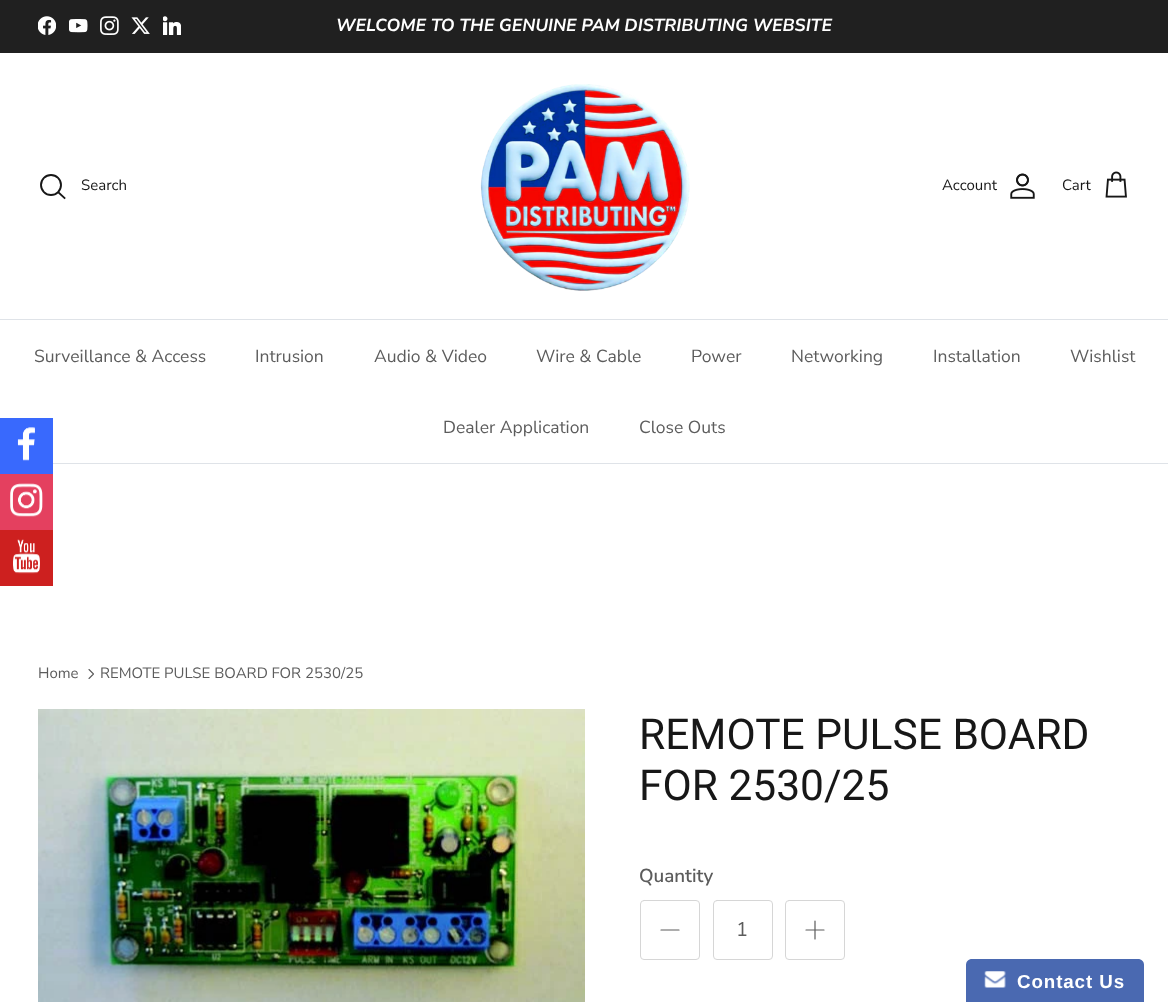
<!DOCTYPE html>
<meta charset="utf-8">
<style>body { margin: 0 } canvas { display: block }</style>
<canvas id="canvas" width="1168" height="1002"></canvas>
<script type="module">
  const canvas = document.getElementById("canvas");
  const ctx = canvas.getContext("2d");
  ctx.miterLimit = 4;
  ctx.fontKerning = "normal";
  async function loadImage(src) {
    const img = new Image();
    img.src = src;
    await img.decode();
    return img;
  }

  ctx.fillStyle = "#ffffff";
  ctx.fillRect(0, 0, 1168, 1002);
  ctx.fillStyle = "#202020";
  ctx.fillRect(0, 0, 1168, 53);
  ctx.drawImage(await loadImage("img1.png"), 38, 16, 18, 19);
  ctx.drawImage(await loadImage("img2.png"), 69, 19, 19, 14);
  ctx.drawImage(await loadImage("img3.png"), 100, 16, 19, 19);
  ctx.drawImage(await loadImage("img4.png"), 131, 17, 19, 17);
  ctx.drawImage(await loadImage("img5.png"), 163, 16, 18, 19);
  ctx.font = "italic bold 17.5px Nunito Sans";
  ctx.fillStyle = "#ffffff";
  ctx.fillText("WELCOME TO THE GENUINE PAM DISTRIBUTING WEBSITE", 336, 31);
  ctx.fillStyle = "#dfe3e8";
  ctx.fillRect(0, 319, 1168, 1);
  ctx.beginPath();
  ctx.arc(51, 185, 10, 0, Math.PI * 2);
  ctx.strokeStyle = "#171717";
  ctx.lineWidth = 1.9;
  ctx.stroke();
  ctx.font = "15px Nunito Sans";
  ctx.fillStyle = "#171717";
  ctx.fillText("Search", 81, 190);
  ctx.beginPath();
  ctx.moveTo(58.5, 192.5);
  ctx.lineTo(64.5, 198);
  ctx.lineCap = "square";
  ctx.stroke();
  ctx.drawImage(await loadImage("img6.png"), 480, 84, 210, 207);
  ctx.fillText("Account", 942, 190);
  ctx.drawImage(await loadImage("img7.png"), 1010, 173, 25, 26);
  ctx.fillText("Cart", 1062, 190);
  ctx.drawImage(await loadImage("img8.png"), 1105, 171, 22, 27);
  ctx.fillStyle = "#dfe3e8";
  ctx.fillRect(53, 463, 1115, 1);
  ctx.font = "17.5px Nunito Sans";
  ctx.fillStyle = "#5c5c5c";
  ctx.fillText("Surveillance & Access", 34, 362);
  ctx.fillText("Intrusion", 255, 362);
  ctx.fillText("Audio & Video", 374, 362);
  ctx.fillText("Wire & Cable", 536, 362);
  ctx.fillText("Power", 691, 362);
  ctx.fillText("Networking", 791, 362);
  ctx.fillText("Installation", 933, 362);
  ctx.fillText("Wishlist", 1070, 362);
  ctx.fillText("Dealer Application", 443, 433);
  ctx.fillText("Close Outs", 639, 433);
  ctx.fillStyle = "#3969fd";
  ctx.fillRect(0, 418, 53, 56);
  ctx.drawImage(await loadImage("img9.png"), 17, 427, 18, 34);
  ctx.fillStyle = "#e4405f";
  ctx.fillRect(0, 474, 53, 56);
  ctx.drawImage(await loadImage("img10.png"), 10, 483, 33, 34);
  ctx.fillStyle = "#cd201f";
  ctx.fillRect(0, 530, 53, 56);
  ctx.drawImage(await loadImage("img11.png"), 13, 539, 27, 35);
  ctx.font = "15px Nunito Sans";
  ctx.fillStyle = "#5c5c5c";
  ctx.fillText("Home", 38, 678);
  ctx.beginPath();
  ctx.moveTo(89, 678.5);
  ctx.lineTo(93.5, 674);
  ctx.lineTo(89, 669.5);
  ctx.strokeStyle = "#5c5c5c";
  ctx.lineWidth = 1.1;
  ctx.lineCap = "round";
  ctx.lineJoin = "round";
  ctx.stroke();
  ctx.fillText("REMOTE PULSE BOARD FOR 2530/25", 100, 678);
  ctx.drawImage(await loadImage("img12.png"), 38, 709, 547, 293);
  ctx.font = "42.5px Roboto";
  ctx.fillStyle = "#171717";
  ctx.fillText("REMOTE PULSE BOARD", 639, 749);
  ctx.fillText("FOR 2530/25", 639, 800);
  ctx.font = "600 18.75px Nunito Sans";
  ctx.fillStyle = "#5c5c5c";
  ctx.fillText("Quantity", 639, 882);
  ctx.beginPath();
  ctx.roundRect(640.5, 900.5, 59, 59, 3.5);
  ctx.strokeStyle = "#d6d6d6";
  ctx.lineWidth = 1;
  ctx.lineJoin = "miter";
  ctx.stroke();
  ctx.beginPath();
  ctx.moveTo(661, 930);
  ctx.lineTo(679, 930);
  ctx.strokeStyle = "#5c5c5c";
  ctx.lineWidth = 1.2;
  ctx.lineJoin = "round";
  ctx.stroke();
  ctx.beginPath();
  ctx.roundRect(713.5, 900.5, 59, 59, 3.5);
  ctx.strokeStyle = "#d6d6d6";
  ctx.lineWidth = 1;
  ctx.lineJoin = "miter";
  ctx.stroke();
  ctx.font = "20px Nunito Sans";
  ctx.fillText("1", 736, 936);
  ctx.beginPath();
  ctx.roundRect(785.5, 900.5, 59, 59, 3.5);
  ctx.stroke();
  ctx.beginPath();
  ctx.moveTo(815, 921);
  ctx.lineTo(815, 939);
  ctx.moveTo(806, 930);
  ctx.lineTo(824, 930);
  ctx.strokeStyle = "#5c5c5c";
  ctx.lineWidth = 1.2;
  ctx.lineJoin = "round";
  ctx.stroke();
  ctx.fillStyle = "#4a69b1";
  ctx.beginPath();
  ctx.moveTo(972, 959);
  ctx.lineTo(1138, 959);
  ctx.bezierCurveTo(1141.5, 959, 1144, 961.5, 1144, 965);
  ctx.lineTo(1144, 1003);
  ctx.lineTo(966, 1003);
  ctx.lineTo(966, 965);
  ctx.bezierCurveTo(966, 961.5, 968.5, 959, 972, 959);
  ctx.closePath();
  ctx.fill();
  ctx.drawImage(await loadImage("img13.png"), 984, 971, 22, 17);
  ctx.letterSpacing = "0.9px";
  ctx.font = "bold 18.75px Liberation Sans";
  ctx.fillStyle = "#ffffff";
  ctx.fillText("Contact Us", 1017, 988);
</script>
